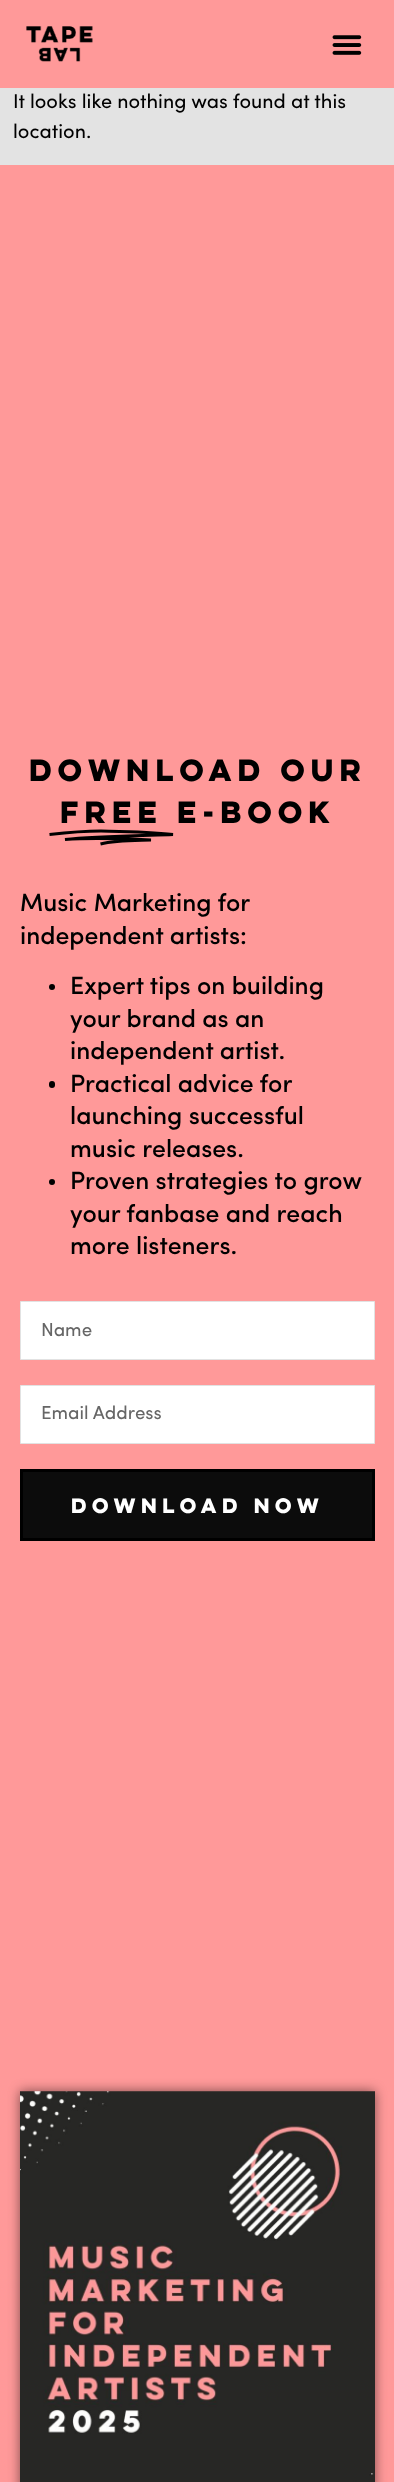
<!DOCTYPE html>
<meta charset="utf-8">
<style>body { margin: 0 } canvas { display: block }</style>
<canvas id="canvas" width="394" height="2482"></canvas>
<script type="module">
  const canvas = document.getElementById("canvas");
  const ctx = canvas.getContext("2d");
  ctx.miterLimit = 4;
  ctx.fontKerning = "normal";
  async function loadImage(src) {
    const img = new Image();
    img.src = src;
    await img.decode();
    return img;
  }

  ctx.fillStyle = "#e3e3e3";
  ctx.fillRect(0, 0, 394, 2482);
  ctx.fillStyle = "#ff9999";
  ctx.fillRect(0, 0, 394, 88);
  ctx.drawImage(await loadImage("img1.png"), 26, 26, 67, 36);
  ctx.drawImage(await loadImage("img2.png"), 332, 35, 30, 20);
  ctx.font = "20px Sofia";
  ctx.fillStyle = "#000000";
  ctx.fillText("It looks like nothing was found at this", 13, 108);
  ctx.fillText("location.", 13, 138);
  ctx.fillStyle = "#ff9999";
  ctx.fillRect(0, 165, 394, 2317);
  ctx.font = "bold 27.5px 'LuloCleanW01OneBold'";
  ctx.fillStyle = "#000000";
  ctx.fillText("DOWNLOAD OUR", 29, 781);
  ctx.fillText("FREE E-BOOK", 60, 823);
  ctx.beginPath();
  ctx.moveTo(49.5, 834.5);
  ctx.bezierCurveTo(62.5, 833, 88, 831, 101, 831);
  ctx.bezierCurveTo(132, 831.5, 149.5, 831.5, 173, 834.5);
  ctx.bezierCurveTo(144.5, 835.5, 93.5, 836, 65, 839.5);
  ctx.bezierCurveTo(86.5, 838, 130, 839, 151, 840);
  ctx.bezierCurveTo(137, 840.5, 116, 840, 100.5, 844);
  ctx.strokeStyle = "#000000";
  ctx.lineWidth = 3;
  ctx.stroke();
  ctx.font = "500 25px Sofia";
  ctx.fillText("Music Marketing for", 20, 911);
  ctx.fillText("independent artists:", 20, 944);
  ctx.beginPath();
  ctx.arc(52, 987, 3, 0, Math.PI * 2);
  ctx.fill();
  ctx.fillText("Expert tips on building", 70, 994);
  ctx.fillText("your brand as an", 70, 1027);
  ctx.fillText("independent artist.", 70, 1059);
  ctx.beginPath();
  ctx.roundRect(49, 1081, 6, 7, 3);
  ctx.fill();
  ctx.fillText("Practical advice for", 70, 1092);
  ctx.fillText("launching successful", 70, 1124);
  ctx.fillText("music releases.", 70, 1157);
  ctx.beginPath();
  ctx.arc(52, 1182, 3, 0, Math.PI * 2);
  ctx.fill();
  ctx.fillText("Proven strategies to grow", 70, 1189);
  ctx.fillText("your fanbase and reach", 70, 1222);
  ctx.fillText("more listeners.", 70, 1254);
  ctx.fillStyle = "#ffffff";
  ctx.beginPath();
  ctx.rect(20.5, 1301.5, 354, 58);
  ctx.fill();
  ctx.strokeStyle = "#e2e2e2";
  ctx.lineWidth = 1;
  ctx.stroke();
  ctx.font = "18.75px Sofia";
  ctx.fillStyle = "#666666";
  ctx.fillText("Name", 41, 1336);
  ctx.fillStyle = "#ffffff";
  ctx.beginPath();
  ctx.rect(20.5, 1385.5, 354, 58);
  ctx.fill();
  ctx.stroke();
  ctx.fillStyle = "#666666";
  ctx.fillText("Email Address", 41, 1419);
  ctx.fillStyle = "#0c0c0c";
  ctx.beginPath();
  ctx.rect(21.5, 1470.5, 352, 69);
  ctx.fill();
  ctx.strokeStyle = "#000000";
  ctx.lineWidth = 3;
  ctx.stroke();
  ctx.letterSpacing = "1.25px";
  ctx.font = "bold 18.75px 'LuloCleanW01OneBold'";
  ctx.fillStyle = "#ffffff";
  ctx.fillText("DOWNLOAD NOW", 71, 1513);
  ctx.fillStyle = "rgba(0, 0, 0, 0.5)";
  ctx.filter = "blur(6px)";
  ctx.beginPath();
  ctx.rect(20, 2091, 355, 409);
  ctx.fill();
  ctx.filter = "none";
  ctx.drawImage(await loadImage("img3.png"), 20, 2091, 355, 391);
</script>
